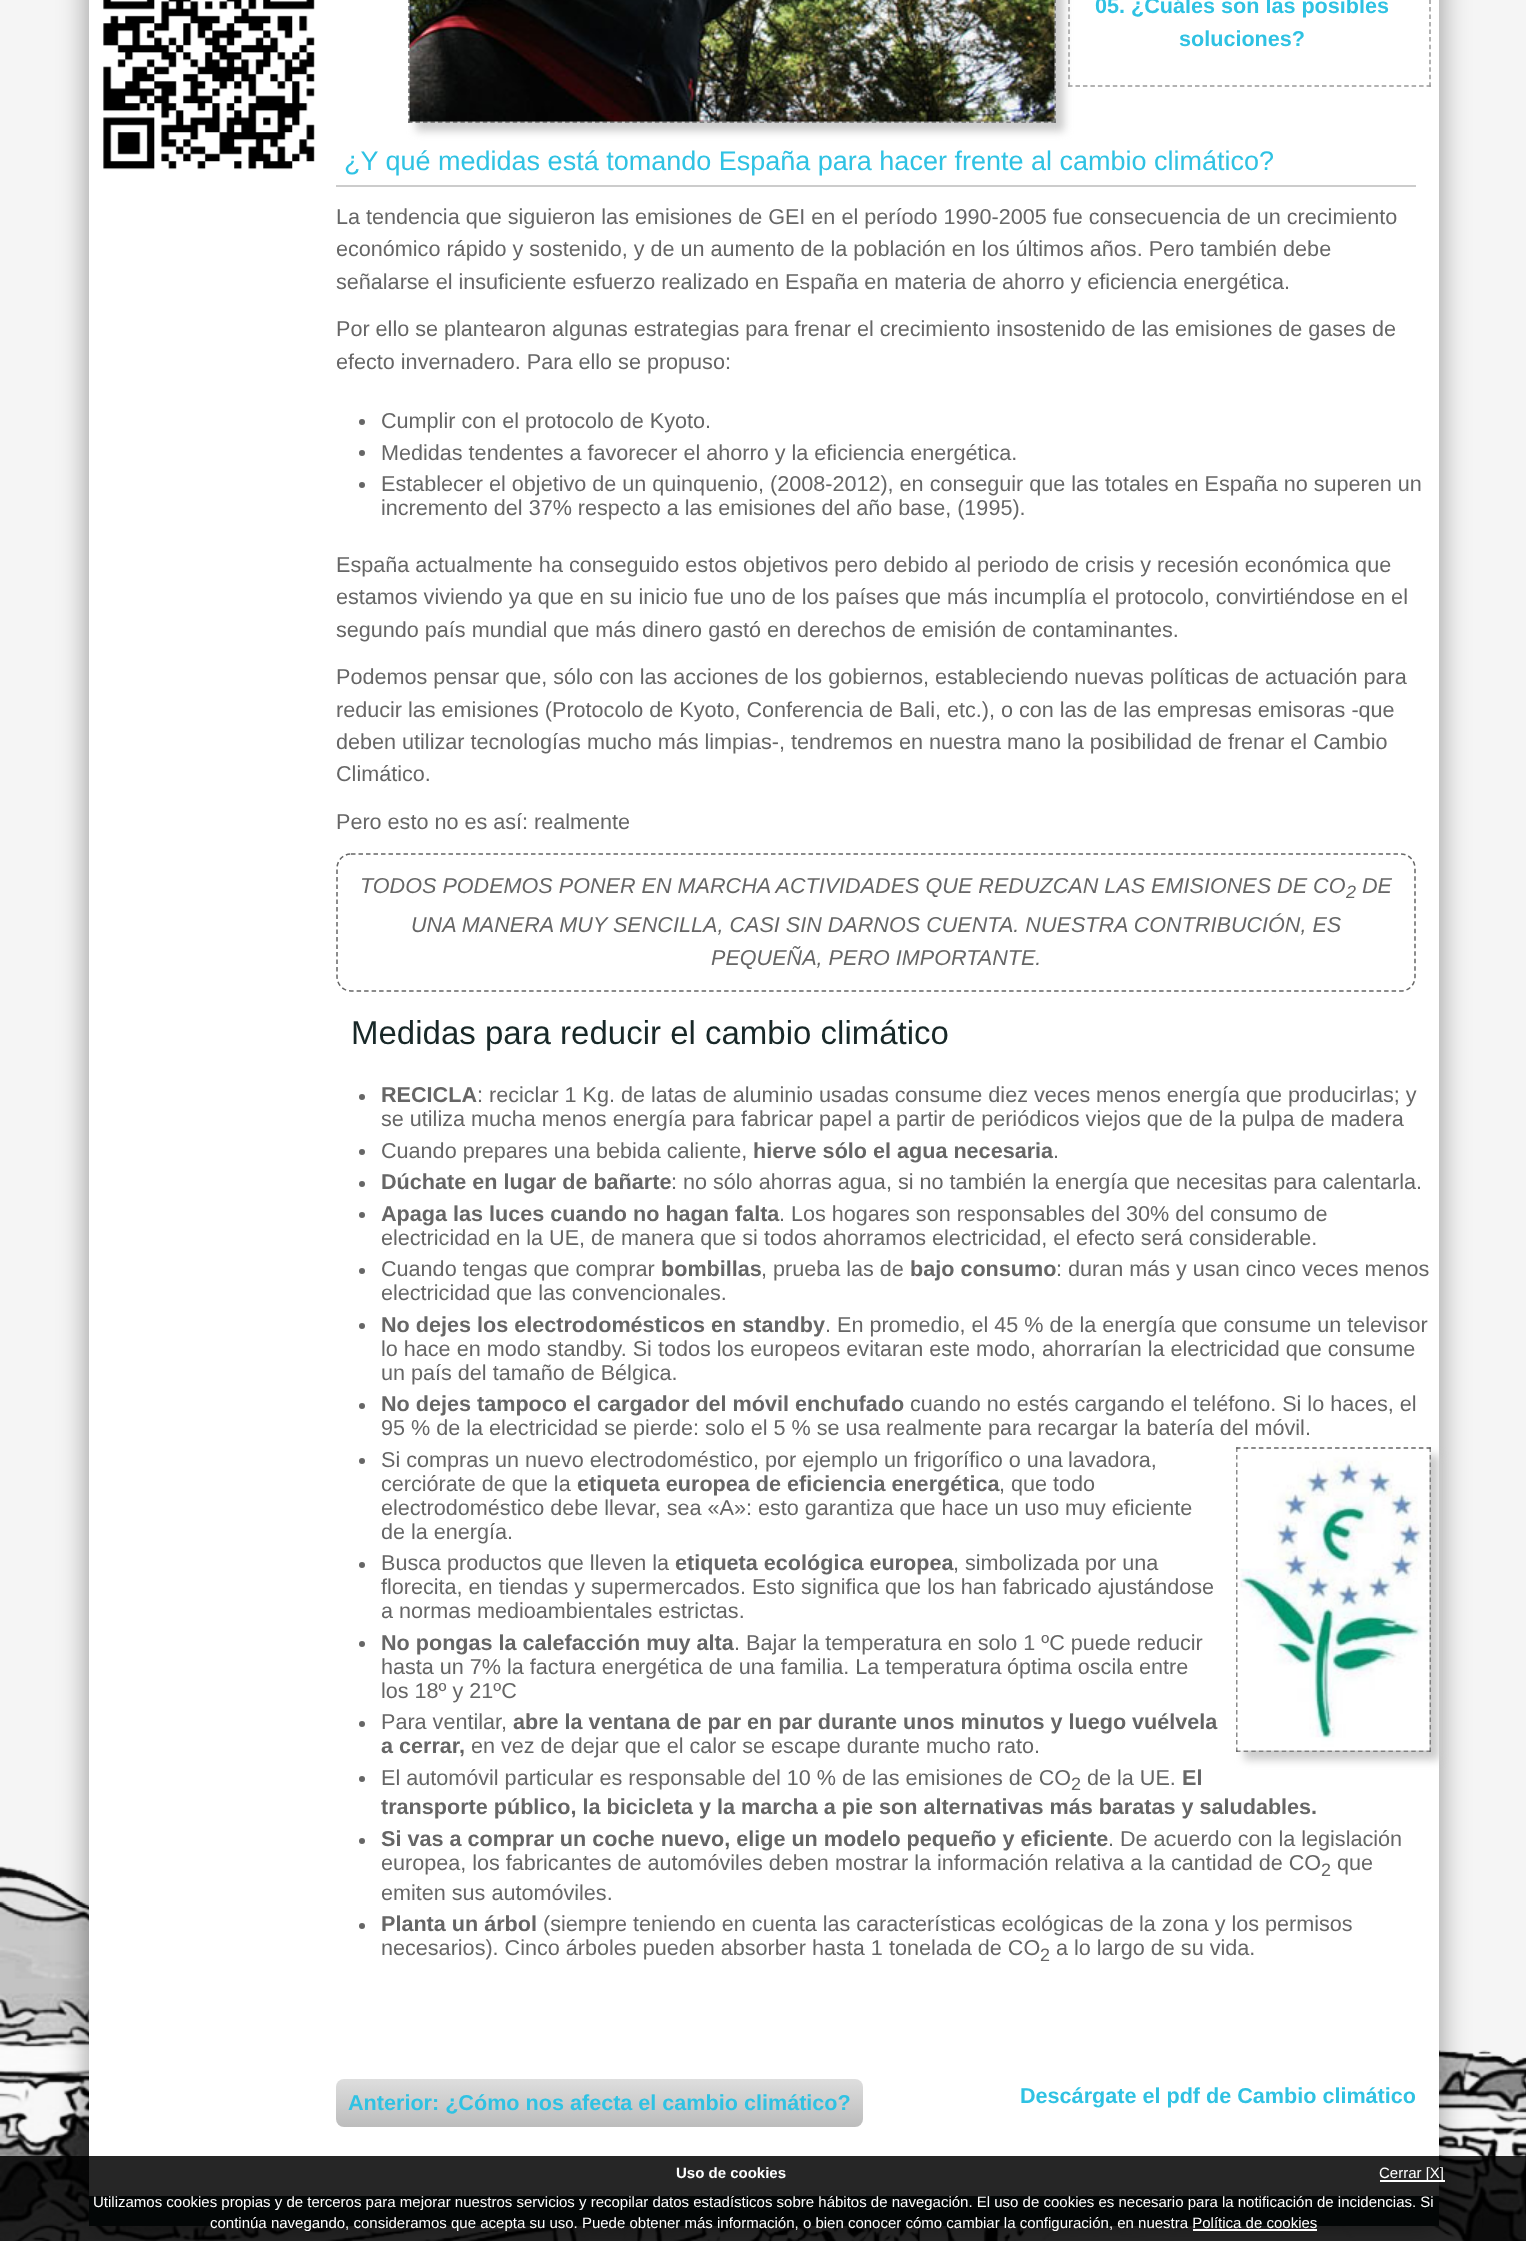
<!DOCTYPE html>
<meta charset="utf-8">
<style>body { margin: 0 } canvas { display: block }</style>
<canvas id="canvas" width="1526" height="2241"></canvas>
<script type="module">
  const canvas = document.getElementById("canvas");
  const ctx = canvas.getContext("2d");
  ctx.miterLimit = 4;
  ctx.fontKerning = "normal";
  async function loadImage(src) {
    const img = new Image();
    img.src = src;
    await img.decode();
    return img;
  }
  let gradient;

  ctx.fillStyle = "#f5f5f5";
  ctx.fillRect(0, 0, 1526, 2241);
  ctx.drawImage(await loadImage("img1.png"), 0, 1866, 1526, 375);
  ctx.fillStyle = "rgba(0, 0, 0, 0.4)";
  ctx.filter = "blur(15px)";
  ctx.beginPath();
  ctx.rect(89, -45, 1350, 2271);
  ctx.fill();
  ctx.filter = "none";
  ctx.fillStyle = "#ffffff";
  ctx.fillRect(89, 0, 1350, 2196);
  ctx.drawImage(await loadImage("img2.png"), 103, 0, 212, 170);
  ctx.beginPath();
  ctx.moveTo(1430, -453);
  ctx.lineTo(1430, 87);
  ctx.strokeStyle = "#999999";
  ctx.lineWidth = 1.5;
  ctx.setLineDash([4.5, 3.04]);
  ctx.stroke();
  ctx.beginPath();
  ctx.moveTo(1068, 86);
  ctx.lineTo(1431, 86);
  ctx.setLineDash([4.5, 2.97]);
  ctx.stroke();
  ctx.beginPath();
  ctx.moveTo(1069, -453);
  ctx.lineTo(1069, 87);
  ctx.setLineDash([4.5, 3.04]);
  ctx.stroke();
  ctx.fillStyle = "#cccccc";
  ctx.filter = "blur(4px)";
  ctx.beginPath();
  ctx.rect(416, -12, 648, 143);
  ctx.fill();
  ctx.filter = "none";
  ctx.beginPath();
  ctx.moveTo(1055, -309);
  ctx.lineTo(1055, 123);
  ctx.strokeStyle = "#666666";
  ctx.setLineDash([4.5, 3]);
  ctx.stroke();
  ctx.beginPath();
  ctx.moveTo(408, 122);
  ctx.lineTo(1056, 122);
  ctx.setLineDash([4.5, 2.98]);
  ctx.stroke();
  ctx.beginPath();
  ctx.moveTo(409, -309);
  ctx.lineTo(409, 123);
  ctx.setLineDash([4.5, 3]);
  ctx.stroke();
  ctx.drawImage(await loadImage("img3.png"), 409, 0, 646, 122);
  ctx.font = "bold 21.6px Liberation Sans";
  ctx.fillStyle = "#2fc2e3";
  ctx.fillText("05. ¿Cuáles son las posibles", 1095, 13);
  ctx.fillText("soluciones?", 1179, 46);
  ctx.fillStyle = "#cccccc";
  ctx.fillRect(336, 185, 1080, 2);
  ctx.font = "27px Liberation Sans";
  ctx.fillStyle = "#2fc2e3";
  ctx.fillText("¿Y qué medidas está tomando España para hacer frente al cambio climático?", 344, 170);
  ctx.font = "21.6px Liberation Sans";
  ctx.fillStyle = "#666666";
  ctx.fillText("La tendencia que siguieron las emisiones de GEI en el período 1990-2005 fue consecuencia de un crecimiento", 336, 224);
  ctx.fillText("económico rápido y sostenido, y de un aumento de la población en los últimos años. Pero también debe", 336, 256);
  ctx.fillText("señalarse el insuficiente esfuerzo realizado en España en materia de", 336, 289);
  ctx.fillText("ahorro y eficiencia energética.", 1002, 289);
  ctx.fillText("Por ello se plantearon algunas estrategias para frenar el crecimiento insostenido de las emisiones de gases de", 336, 336);
  ctx.fillText("efecto invernadero. Para ello se propuso:", 336, 369);
  ctx.beginPath();
  ctx.arc(362, 422, 3, 0, Math.PI * 2);
  ctx.fill();
  ctx.fillText("Cumplir con el protocolo de Kyoto.", 381, 428);
  ctx.beginPath();
  ctx.arc(362, 453, 3, 0, Math.PI * 2);
  ctx.fill();
  ctx.fillText("Medidas tendentes a favorecer el ahorro y la eficiencia energética.", 381, 460);
  ctx.beginPath();
  ctx.arc(362, 485, 3, 0, Math.PI * 2);
  ctx.fill();
  ctx.fillText("Establecer el objetivo de un quinquenio, (2008-2012), en conseguir que las totales en España no superen un", 381, 491);
  ctx.fillText("incremento del 37% respecto a las emisiones del año base, (1995).", 381, 515);
  ctx.fillText("España actualmente ha conseguido estos objetivos pero debido al periodo de crisis y recesión económica que", 336, 572);
  ctx.fillText("estamos viviendo ya que en su inicio fue uno de los países que más incumplía el protocolo, convirtiéndose en el", 336, 604);
  ctx.fillText("segundo país mundial que más dinero gastó en derechos de emisión de contaminantes.", 336, 637);
  ctx.fillText("Podemos pensar que, sólo con las acciones de los gobiernos, estableciendo nuevas políticas de actuación para", 336, 684);
  ctx.fillText("reducir las emisiones (Protocolo de Kyoto, Conferencia de Bali, etc.), o con las de las empresas emisoras -que", 336, 717);
  ctx.fillText("deben utilizar tecnologías mucho más limpias-, tendremos", 336, 749);
  ctx.fillText("en nuestra mano la posibilidad de frenar el Cambio", 899, 749);
  ctx.fillText("Climático.", 336, 781);
  ctx.fillText("Pero esto no es así: realmente", 336, 829);
  ctx.beginPath();
  ctx.moveTo(351, 854);
  ctx.lineTo(1401, 854);
  ctx.bezierCurveTo(1409, 854, 1415, 860.5, 1415, 868.5);
  ctx.lineTo(1415, 976.5);
  ctx.bezierCurveTo(1415, 984.5, 1409, 991, 1401, 991);
  ctx.lineTo(351, 991);
  ctx.bezierCurveTo(343, 991, 337, 984.5, 337, 976.5);
  ctx.lineTo(337, 868.5);
  ctx.bezierCurveTo(337, 860.5, 343, 854, 351, 854);
  ctx.closePath();
  ctx.stroke();
  ctx.font = "italic 21.6px Liberation Sans";
  ctx.fillText("TODOS PODEMOS PONER EN MARCHA ACTIVIDADES QUE REDUZCAN LAS EMISIONES DE CO", 360, 893);
  ctx.font = "italic 18px Liberation Sans";
  ctx.fillText("2", 1346, 898);
  ctx.font = "italic 21.6px Liberation Sans";
  ctx.fillText("DE", 1362, 893);
  ctx.fillText("UNA MANERA MUY SENCILLA, CASI SIN DARNOS CUENTA. NUESTRA CONTRIBUCIÓN, ES", 411, 932);
  ctx.fillText("PEQUEÑA, PERO IMPORTANTE.", 711, 965);
  ctx.font = "33px Liberation Sans";
  ctx.fillStyle = "#182828";
  ctx.fillText("Medidas para reducir el cambio climático", 351, 1044);
  ctx.fillStyle = "#666666";
  ctx.beginPath();
  ctx.arc(362, 1097, 3, 0, Math.PI * 2);
  ctx.fill();
  ctx.font = "bold 21.6px Liberation Sans";
  ctx.fillText("RECICLA", 381, 1102);
  ctx.font = "21.6px Liberation Sans";
  ctx.fillText(": reciclar 1 Kg. de latas de aluminio usadas consume diez veces", 477, 1102);
  ctx.fillText("menos energía que producirlas; y", 1096, 1102);
  ctx.fillText("se utiliza mucha menos energía para fabricar papel a partir de periódicos viejos que de la pulpa de madera", 381, 1126);
  ctx.beginPath();
  ctx.arc(362, 1152, 3, 0, Math.PI * 2);
  ctx.fill();
  ctx.fillText("Cuando prepares una bebida caliente,", 381, 1158);
  ctx.font = "bold 21.6px Liberation Sans";
  ctx.fillText("hierve sólo el agua necesaria", 753, 1158);
  ctx.font = "21.6px Liberation Sans";
  ctx.fillText(".", 1053, 1158);
  ctx.beginPath();
  ctx.arc(362, 1184, 3, 0, Math.PI * 2);
  ctx.fill();
  ctx.font = "bold 21.6px Liberation Sans";
  ctx.fillText("Dúchate en lugar de bañarte", 381, 1189);
  ctx.font = "21.6px Liberation Sans";
  ctx.fillText(": no sólo ahorras agua, si no también la energía", 671, 1189);
  ctx.fillText("que necesitas para calentarla.", 1134, 1189);
  ctx.beginPath();
  ctx.arc(362, 1215, 3, 0, Math.PI * 2);
  ctx.fill();
  ctx.font = "bold 21.6px Liberation Sans";
  ctx.fillText("Apaga las luces cuando no hagan falta", 381, 1221);
  ctx.font = "21.6px Liberation Sans";
  ctx.fillText(". Los hogares son responsables del 30% del consumo de", 779, 1221);
  ctx.fillText("electricidad en la UE, de manera que si todos ahorramos", 381, 1245);
  ctx.fillText("electricidad, el efecto será considerable.", 932, 1245);
  ctx.beginPath();
  ctx.arc(362, 1271, 3, 0, Math.PI * 2);
  ctx.fill();
  ctx.fillText("Cuando tengas que comprar", 381, 1276);
  ctx.font = "bold 21.6px Liberation Sans";
  ctx.fillText("bombillas", 661, 1276);
  ctx.font = "21.6px Liberation Sans";
  ctx.fillText(", prueba las de", 761, 1276);
  ctx.font = "bold 21.6px Liberation Sans";
  ctx.fillText("bajo consumo", 910, 1276);
  ctx.font = "21.6px Liberation Sans";
  ctx.fillText(": duran más y usan cinco veces menos", 1056, 1276);
  ctx.fillText("electricidad que las convencionales.", 381, 1300);
  ctx.beginPath();
  ctx.arc(362, 1326, 3, 0, Math.PI * 2);
  ctx.fill();
  ctx.font = "bold 21.6px Liberation Sans";
  ctx.fillText("No dejes los electrodomésticos en standby", 381, 1332);
  ctx.font = "21.6px Liberation Sans";
  ctx.fillText(". En promedio, el 45 % de la energía que consume un televisor", 825, 1332);
  ctx.fillText("lo hace en modo standby. Si todos los europeos evitaran este modo, ahorrarían la electricidad que consume", 381, 1356);
  ctx.fillText("un país del tamaño de Bélgica.", 381, 1380);
  ctx.beginPath();
  ctx.arc(362, 1406, 3, 0, Math.PI * 2);
  ctx.fill();
  ctx.font = "bold 21.6px Liberation Sans";
  ctx.fillText("No dejes tampoco el cargador del móvil enchufado", 381, 1411);
  ctx.font = "21.6px Liberation Sans";
  ctx.fillText("cuando no estés cargando el teléfono. Si lo haces, el", 910, 1411);
  ctx.fillText("95 % de la electricidad se pierde: solo el 5 % se usa", 381, 1435);
  ctx.fillText("realmente para recargar la batería del móvil.", 886, 1435);
  ctx.beginPath();
  ctx.arc(362, 1461, 3, 0, Math.PI * 2);
  ctx.fill();
  ctx.fillText("Si compras un nuevo electrodoméstico, por ejemplo un frigorífico o una", 381, 1467);
  ctx.fillText("lavadora,", 1068, 1467);
  ctx.fillStyle = "#cccccc";
  ctx.filter = "blur(4px)";
  ctx.beginPath();
  ctx.rect(1244, 1455, 195, 305);
  ctx.fill();
  ctx.filter = "none";
  ctx.beginPath();
  ctx.moveTo(1236, 1448);
  ctx.lineTo(1431, 1448);
  ctx.setLineDash([4.5, 3.12]);
  ctx.stroke();
  ctx.beginPath();
  ctx.moveTo(1430, 1447.5);
  ctx.lineTo(1430, 1752);
  ctx.setLineDash([4.5, 3]);
  ctx.stroke();
  ctx.beginPath();
  ctx.moveTo(1236, 1751);
  ctx.lineTo(1431, 1751);
  ctx.setLineDash([4.5, 3.12]);
  ctx.stroke();
  ctx.beginPath();
  ctx.moveTo(1237, 1447.5);
  ctx.lineTo(1237, 1752);
  ctx.setLineDash([4.5, 3]);
  ctx.stroke();
  ctx.drawImage(await loadImage("img4.png"), 1237, 1449, 193, 302);
  ctx.fillStyle = "#666666";
  ctx.fillText("cerciórate de que la", 381, 1491);
  ctx.font = "bold 21.6px Liberation Sans";
  ctx.fillText("etiqueta europea de eficiencia energética", 577, 1491);
  ctx.font = "21.6px Liberation Sans";
  ctx.fillText(", que todo", 999, 1491);
  ctx.fillText("electrodoméstico debe llevar, sea «A»: esto garantiza que hace un uso", 381, 1515);
  ctx.fillText("muy eficiente", 1065, 1515);
  ctx.fillText("de la energía.", 381, 1539);
  ctx.beginPath();
  ctx.arc(362, 1565, 3, 0, Math.PI * 2);
  ctx.fill();
  ctx.fillText("Busca productos que lleven la", 381, 1570);
  ctx.font = "bold 21.6px Liberation Sans";
  ctx.fillText("etiqueta ecológica europea", 675, 1570);
  ctx.font = "21.6px Liberation Sans";
  ctx.fillText(", simbolizada por una", 953, 1570);
  ctx.fillText("florecita, en tiendas y supermercados. Esto significa que los han fabricado ajustándose", 381, 1594);
  ctx.fillText("a normas medioambientales estrictas.", 381, 1618);
  ctx.beginPath();
  ctx.arc(362, 1644, 3, 0, Math.PI * 2);
  ctx.fill();
  ctx.font = "bold 21.6px Liberation Sans";
  ctx.fillText("No pongas la calefacción muy alta", 381, 1650);
  ctx.font = "21.6px Liberation Sans";
  ctx.fillText(". Bajar la temperatura en solo 1 ºC puede reducir", 734, 1650);
  ctx.fillText("hasta un 7% la factura energética de una familia. La temperatura", 381, 1674);
  ctx.fillText("óptima oscila entre", 1007, 1674);
  ctx.fillText("los 18º y 21ºC", 381, 1698);
  ctx.beginPath();
  ctx.arc(362, 1724, 3, 0, Math.PI * 2);
  ctx.fill();
  ctx.fillText("Para ventilar,", 381, 1729);
  ctx.font = "bold 21.6px Liberation Sans";
  ctx.fillText("abre la ventana de par en par durante unos minutos y luego", 513, 1729);
  ctx.fillText("vuélvela", 1132, 1729);
  ctx.fillText("a cerrar,", 381, 1753);
  ctx.font = "21.6px Liberation Sans";
  ctx.fillText("en vez de dejar que el calor se escape durante mucho rato.", 471, 1753);
  ctx.beginPath();
  ctx.arc(362, 1779, 3, 0, Math.PI * 2);
  ctx.fill();
  ctx.fillText("El automóvil particular es responsable del 10 % de las emisiones de CO", 381, 1785);
  ctx.font = "18px Liberation Sans";
  ctx.fillText("2", 1071, 1790);
  ctx.font = "21.6px Liberation Sans";
  ctx.fillText("de la UE.", 1087, 1785);
  ctx.font = "bold 21.6px Liberation Sans";
  ctx.fillText("El", 1182, 1785);
  ctx.fillText("transporte público, la bicicleta y la marcha a pie son alternativas más baratas y saludables.", 381, 1814);
  ctx.beginPath();
  ctx.arc(362, 1841, 3, 0, Math.PI * 2);
  ctx.fill();
  ctx.fillText("Si vas a comprar un coche nuevo, elige un modelo pequeño y eficiente", 381, 1846);
  ctx.font = "21.6px Liberation Sans";
  ctx.fillText(". De acuerdo con la legislación", 1108, 1846);
  ctx.fillText("europea, los fabricantes de automóviles deben", 381, 1870);
  ctx.fillText("mostrar la información relativa a la cantidad de CO", 835, 1870);
  ctx.font = "18px Liberation Sans";
  ctx.fillText("2", 1321, 1876);
  ctx.font = "21.6px Liberation Sans";
  ctx.fillText("que", 1337, 1870);
  ctx.fillText("emiten sus automóviles.", 381, 1900);
  ctx.beginPath();
  ctx.arc(362, 1926, 3, 0, Math.PI * 2);
  ctx.fill();
  ctx.font = "bold 21.6px Liberation Sans";
  ctx.fillText("Planta un árbol", 381, 1931);
  ctx.font = "21.6px Liberation Sans";
  ctx.fillText("(siempre teniendo en cuenta las características ecológicas de", 543, 1931);
  ctx.fillText("la zona y los permisos", 1139, 1931);
  ctx.fillText("necesarios). Cinco árboles pueden absorber hasta 1", 381, 1955);
  ctx.fillText("tonelada de CO", 889, 1955);
  ctx.font = "18px Liberation Sans";
  ctx.fillText("2", 1040, 1961);
  ctx.font = "21.6px Liberation Sans";
  ctx.fillText("a lo largo de su vida.", 1056, 1955);
  gradient = ctx.createLinearGradient(599, 2079, 599, 2127);
  gradient.addColorStop(0, "#dedede");
  gradient.addColorStop(1, "#bcbcbc");
  ctx.fillStyle = gradient;
  ctx.beginPath();
  ctx.roundRect(336, 2079, 527, 48, 8);
  ctx.fill();
  ctx.font = "bold 21.6px Liberation Sans";
  ctx.fillStyle = "#2fc2e3";
  ctx.fillText("Anterior: ¿Cómo nos afecta el cambio climático?", 348, 2110);
  ctx.fillText("Descárgate el pdf de Cambio climático", 1020, 2103);
  ctx.fillStyle = "#182828";
  ctx.fillRect(89, 2196, 1350, 30);
  ctx.fillStyle = "rgba(0, 0, 0, 0.85)";
  ctx.fillRect(0, 2156, 1526, 85);
  ctx.font = "bold 15px Liberation Sans";
  ctx.fillStyle = "#ffffff";
  ctx.fillText("Uso de cookies", 676, 2178);
  ctx.fillRect(1380, 2180, 65, 2);
  ctx.font = "15px Liberation Sans";
  ctx.fillText("Cerrar [X]", 1379, 2178);
  ctx.fillText("Utilizamos cookies propias y de terceros para mejorar nuestros servicios y recopilar datos estadísticos sobre hábitos de navegación. El uso de cookies es necesario para la notificación de incidencias. Si", 93, 2207);
  ctx.fillText("continúa navegando, consideramos que acepta su uso. Puede obtener más información, o bien conocer cómo cambiar la configuración, en nuestra Política de cookies", 210, 2228);
  ctx.fillRect(1193, 2229, 124, 2);
</script>
